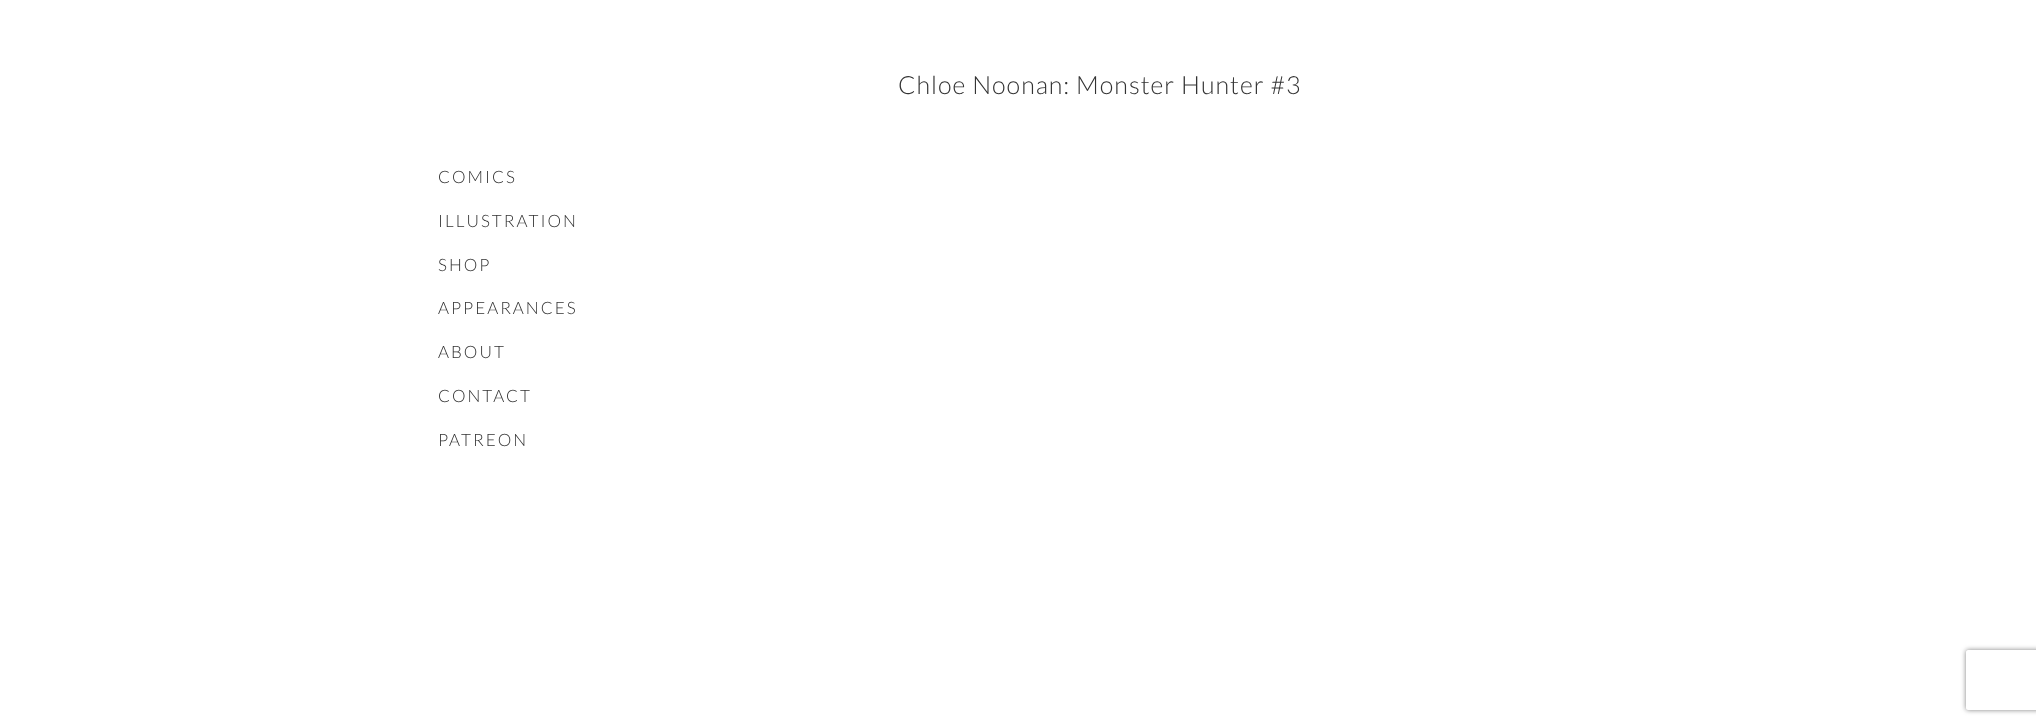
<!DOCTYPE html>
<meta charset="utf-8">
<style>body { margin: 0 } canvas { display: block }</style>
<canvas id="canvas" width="2036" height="724"></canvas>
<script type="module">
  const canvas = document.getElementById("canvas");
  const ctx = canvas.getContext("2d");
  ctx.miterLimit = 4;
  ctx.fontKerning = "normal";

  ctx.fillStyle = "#ffffff";
  ctx.fillRect(0, 0, 2036, 724);
  ctx.letterSpacing = "1px";
  ctx.font = "300 25px Lato";
  ctx.fillStyle = "#333333";
  ctx.fillText("Chloe Noonan: Monster Hunter #3", 898, 94);
  ctx.letterSpacing = "2px";
  ctx.font = "300 17px Lato";
  ctx.fillText("COMICS", 438, 183);
  ctx.fillText("ILLUSTRATION", 438, 227);
  ctx.fillText("SHOP", 438, 271);
  ctx.fillText("APPEARANCES", 438, 314);
  ctx.fillText("ABOUT", 438, 358);
  ctx.fillText("CONTACT", 438, 402);
  ctx.fillText("PATREON", 438, 446);
  ctx.save();
  ctx.beginPath();
  ctx.moveTo(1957, 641);
  ctx.lineTo(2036, 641);
  ctx.lineTo(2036, 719);
  ctx.lineTo(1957, 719);
  ctx.closePath();
  ctx.moveTo(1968, 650);
  ctx.lineTo(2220, 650);
  ctx.bezierCurveTo(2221, 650, 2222, 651, 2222, 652);
  ctx.lineTo(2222, 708);
  ctx.bezierCurveTo(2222, 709, 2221, 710, 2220, 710);
  ctx.lineTo(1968, 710);
  ctx.bezierCurveTo(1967, 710, 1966, 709, 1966, 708);
  ctx.lineTo(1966, 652);
  ctx.bezierCurveTo(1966, 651, 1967, 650, 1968, 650);
  ctx.closePath();
  ctx.clip("evenodd");
  ctx.fillStyle = "#808080";
  ctx.filter = "blur(2.5px)";
  ctx.beginPath();
  ctx.roundRect(1966, 650, 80, 60, 2);
  ctx.fill();
  ctx.filter = "none";
  ctx.restore();
</script>
